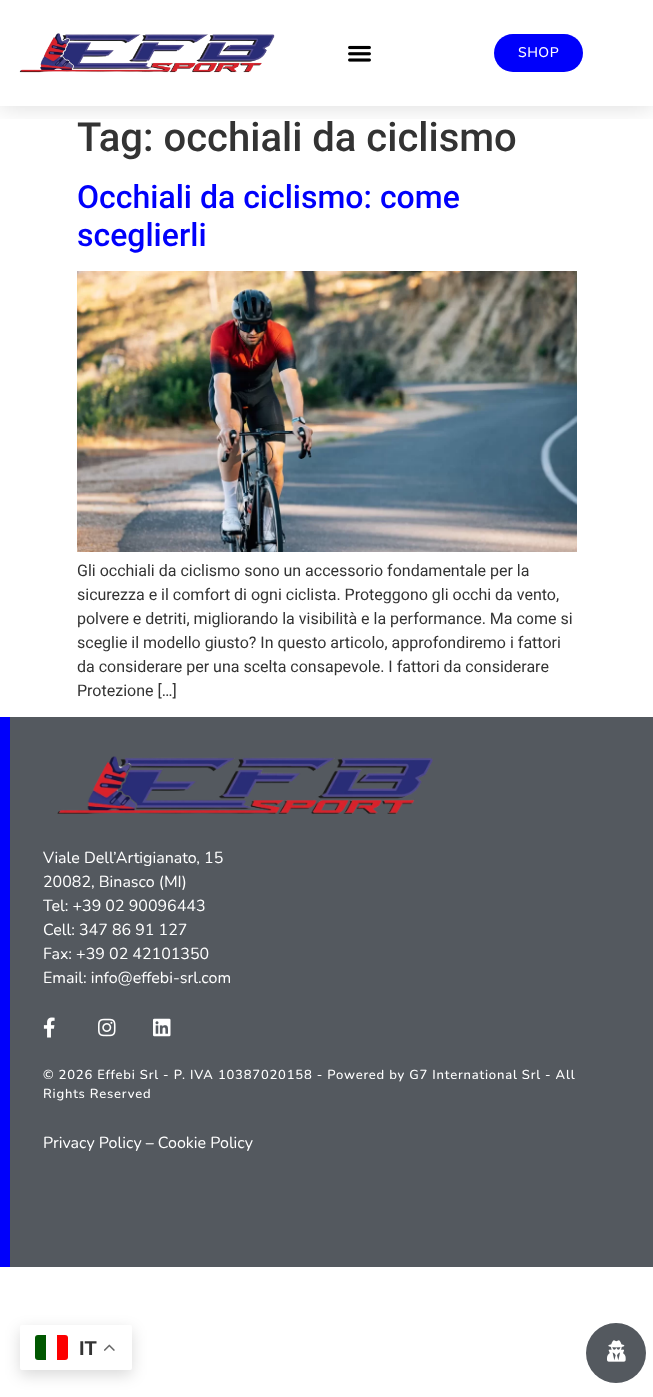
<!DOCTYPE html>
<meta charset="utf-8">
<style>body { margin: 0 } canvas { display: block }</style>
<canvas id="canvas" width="653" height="1397"></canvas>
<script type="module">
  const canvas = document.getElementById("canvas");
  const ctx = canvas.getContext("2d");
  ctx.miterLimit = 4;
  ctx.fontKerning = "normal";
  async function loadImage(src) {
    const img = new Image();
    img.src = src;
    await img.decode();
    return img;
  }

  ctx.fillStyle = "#ffffff";
  ctx.fillRect(0, 0, 653, 1397);
  ctx.save();
  ctx.beginPath();
  ctx.rect(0, 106, 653, 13);
  ctx.clip();
  ctx.fillStyle = "rgba(0, 0, 0, 0.15)";
  ctx.filter = "blur(12px)";
  ctx.beginPath();
  ctx.rect(0, 0, 653, 106);
  ctx.fill();
  ctx.filter = "none";
  ctx.restore();
  ctx.drawImage(await loadImage("img1.png"), 19, 33, 256, 40);
  ctx.drawImage(await loadImage("img2.png"), 348, 45, 23, 17);
  ctx.fillStyle = "#0000fb";
  ctx.beginPath();
  ctx.roundRect(494, 34, 89, 38, 19);
  ctx.fill();
  ctx.letterSpacing = "0.5px";
  ctx.font = "500 14px Nunito";
  ctx.fillStyle = "#ffffff";
  ctx.fillText("SHOP", 518, 57);
  ctx.letterSpacing = "0px";
  ctx.font = "500 40px Roboto";
  ctx.fillStyle = "#333333";
  ctx.fillText("Tag: occhiali da ciclismo", 77, 151);
  ctx.font = "500 32px Roboto";
  ctx.fillStyle = "#0000fb";
  ctx.fillText("Occhiali da ciclismo: come", 77, 208);
  ctx.fillText("sceglierli", 77, 246);
  ctx.drawImage(await loadImage("img3.png"), 77, 271, 500, 281);
  ctx.font = "16px Roboto";
  ctx.fillStyle = "#333333";
  ctx.fillText("Gli occhiali da ciclismo sono un accessorio fondamentale per la", 77, 576);
  ctx.fillText("sicurezza e il comfort di ogni ciclista. Proteggono gli occhi da vento,", 77, 600);
  ctx.fillText("polvere e detriti, migliorando la visibilità e la performance. Ma come si", 77, 624);
  ctx.fillText("sceglie il modello giusto? In questo articolo, approfondiremo i fattori", 77, 648);
  ctx.fillText("da considerare per una scelta consapevole. I fattori da considerare", 77, 672);
  ctx.fillText("Protezione […]", 77, 696);
  ctx.fillStyle = "#54595f";
  ctx.fillRect(10, 717, 643, 550);
  ctx.fillStyle = "#0000fb";
  ctx.fillRect(0, 717, 10, 550);
  ctx.drawImage(await loadImage("img4.png"), 57, 756, 376, 58);
  ctx.font = "16px Nunito";
  ctx.fillStyle = "#ffffff";
  ctx.fillText("Viale Dell’Artigianato, 15", 43, 863);
  ctx.fillText("20082, Binasco (MI)", 43, 887);
  ctx.fillText("Tel: +39 02 90096443", 43, 911);
  ctx.fillText("Cell: 347 86 91 127", 43, 935);
  ctx.fillText("Fax: +39 02 42101350", 43, 959);
  ctx.fillText("Email: info@effebi-srl.com", 43, 983);
  ctx.drawImage(await loadImage("img5.png"), 43, 1017, 12, 21);
  ctx.drawImage(await loadImage("img6.png"), 98, 1018, 18, 19);
  ctx.drawImage(await loadImage("img7.png"), 153, 1018, 18, 19);
  ctx.letterSpacing = "0.8px";
  ctx.font = "500 13px Nunito";
  ctx.fillText("© 2026 Effebi Srl - P. IVA 10387020158 - Powered by G7 International Srl - All", 43, 1079);
  ctx.fillText("Rights Reserved", 43, 1098);
  ctx.letterSpacing = "0px";
  ctx.font = "16px Nunito";
  ctx.fillText("Privacy Policy – Cookie Policy", 43, 1148);
  ctx.fillStyle = "rgba(0, 0, 0, 0.15)";
  ctx.filter = "blur(7.5px)";
  ctx.beginPath();
  ctx.roundRect(20, 1330, 112, 45, 2);
  ctx.fill();
  ctx.filter = "none";
  ctx.fillStyle = "#ffffff";
  ctx.beginPath();
  ctx.roundRect(20, 1325, 112, 45, 2);
  ctx.fill();
  ctx.fillStyle = "#005700";
  ctx.beginPath();
  ctx.roundRect(35, 1335, 11, 25, [3, 0, 0, 3]);
  ctx.fill();
  ctx.fillStyle = "#fc0000";
  ctx.beginPath();
  ctx.roundRect(57, 1335, 11, 25, [0, 3, 3, 0]);
  ctx.fill();
  ctx.font = "bold 20px Liberation Sans";
  ctx.fillStyle = "#333333";
  ctx.fillText("IT", 79, 1355);
  ctx.drawImage(await loadImage("img8.png"), 104, 1344, 11, 7);
  ctx.fillStyle = "#54595f";
  ctx.beginPath();
  ctx.arc(616, 1353, 30, 0, Math.PI * 2);
  ctx.fill();
  ctx.drawImage(await loadImage("img9.png"), 607, 1340, 19, 22);
</script>
